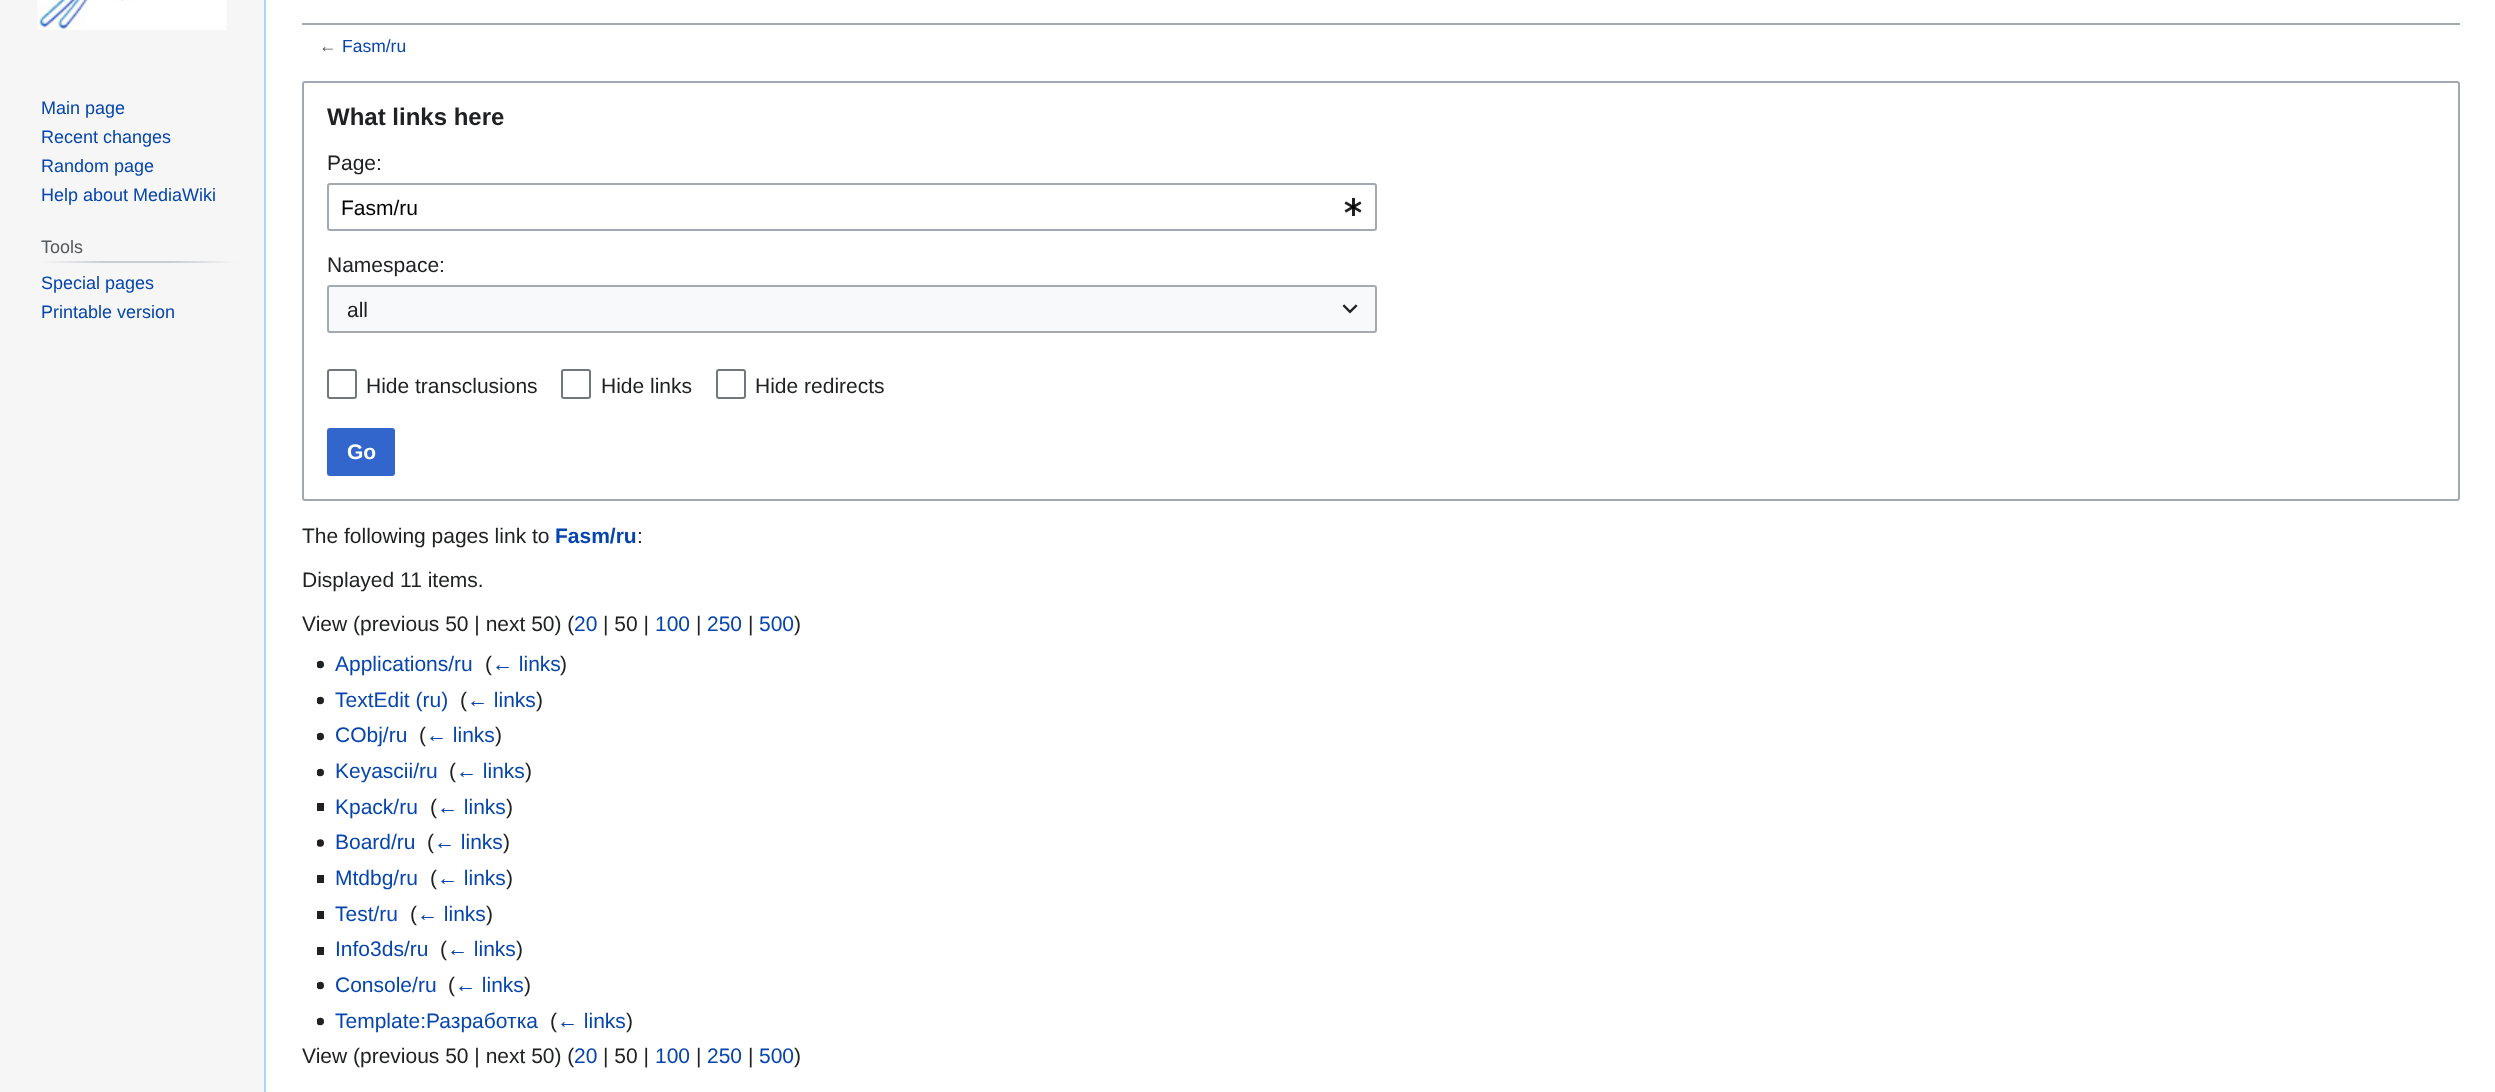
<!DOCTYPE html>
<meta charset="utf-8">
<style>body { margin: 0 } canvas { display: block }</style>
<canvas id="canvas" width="2495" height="1092"></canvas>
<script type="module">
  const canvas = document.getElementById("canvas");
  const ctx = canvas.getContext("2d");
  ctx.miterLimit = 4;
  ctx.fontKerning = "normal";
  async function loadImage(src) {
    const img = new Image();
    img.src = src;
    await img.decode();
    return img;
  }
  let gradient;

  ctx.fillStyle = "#f6f6f6";
  ctx.fillRect(0, 0, 2495, 1092);
  ctx.drawImage(await loadImage("img1.png"), 37, 0, 190, 30);
  ctx.font = "18px Liberation Sans";
  ctx.fillStyle = "#0645ad";
  ctx.fillText("Main page", 41, 114);
  ctx.fillText("Recent changes", 41, 143);
  ctx.fillText("Random page", 41, 172);
  ctx.fillText("Help about MediaWiki", 41, 201);
  gradient = ctx.createLinearGradient(41, 262, 237, 262);
  gradient.addColorStop(0, "#f6f6f6");
  gradient.addColorStop(0.33, "#c8ccd1");
  gradient.addColorStop(0.66, "#c8ccd1");
  gradient.addColorStop(1, "#f6f6f6");
  ctx.fillStyle = gradient;
  ctx.fillRect(41, 261, 196, 2);
  ctx.fillStyle = "#54595d";
  ctx.fillText("Tools", 41, 253);
  ctx.fillStyle = "#0645ad";
  ctx.fillText("Special pages", 41, 289);
  ctx.fillText("Printable version", 41, 318);
  ctx.fillStyle = "#ffffff";
  ctx.fillRect(266, 0, 2229, 1092);
  ctx.fillStyle = "#a7d7f9";
  ctx.fillRect(264, 0, 2, 1092);
  ctx.fillStyle = "#a2a9b1";
  ctx.fillRect(302, 23, 2158, 2);
  ctx.font = "17.5px Liberation Sans";
  ctx.fillStyle = "#54595d";
  ctx.fillText("←", 319, 52);
  ctx.fillStyle = "#0645ad";
  ctx.fillText("Fasm/ru", 342, 52);
  ctx.beginPath();
  ctx.roundRect(303, 82, 2156, 418, 2);
  ctx.strokeStyle = "#a2a9b1";
  ctx.lineWidth = 2;
  ctx.stroke();
  ctx.font = "bold 24px Liberation Sans";
  ctx.fillStyle = "#202122";
  ctx.fillText("What links here", 327, 125);
  ctx.font = "21px Liberation Sans";
  ctx.fillText("Page:", 327, 170);
  ctx.beginPath();
  ctx.roundRect(328, 184, 1048, 46, 2);
  ctx.stroke();
  ctx.fillStyle = "#000000";
  ctx.fillText("Fasm/ru", 341, 215);
  ctx.drawImage(await loadImage("img2.png"), 1344, 198, 18, 18);
  ctx.fillStyle = "#202122";
  ctx.fillText("Namespace:", 327, 272);
  ctx.fillStyle = "#f8f9fa";
  ctx.fillRect(327, 285, 1050, 48);
  ctx.beginPath();
  ctx.roundRect(328, 286, 1048, 46, 2);
  ctx.stroke();
  ctx.fillStyle = "#202122";
  ctx.fillText("all", 347, 317);
  ctx.drawImage(await loadImage("img3.png"), 1342, 304, 16, 10);
  ctx.beginPath();
  ctx.roundRect(328, 370, 28, 28, 2);
  ctx.strokeStyle = "#72777d";
  ctx.stroke();
  ctx.fillText("Hide transclusions", 366, 393);
  ctx.beginPath();
  ctx.roundRect(562, 370, 28, 28, 2);
  ctx.stroke();
  ctx.fillText("Hide links", 601, 393);
  ctx.beginPath();
  ctx.roundRect(717, 370, 28, 28, 2);
  ctx.stroke();
  ctx.fillText("Hide redirects", 755, 393);
  ctx.fillStyle = "#3366cc";
  ctx.beginPath();
  ctx.roundRect(328, 429, 66, 46, 2);
  ctx.fill();
  ctx.strokeStyle = "#3366cc";
  ctx.stroke();
  ctx.font = "bold 21px Liberation Sans";
  ctx.fillStyle = "#ffffff";
  ctx.fillText("Go", 347, 459);
  ctx.font = "21px Liberation Sans";
  ctx.fillStyle = "#202122";
  ctx.fillText("The following pages link to", 302, 543);
  ctx.font = "bold 21px Liberation Sans";
  ctx.fillStyle = "#0645ad";
  ctx.fillText("Fasm/ru", 555, 543);
  ctx.font = "21px Liberation Sans";
  ctx.fillStyle = "#202122";
  ctx.fillText(":", 637, 543);
  ctx.fillText("Displayed 11 items.", 302, 587);
  ctx.fillText("View (previous 50 | next 50) (", 302, 631);
  ctx.fillStyle = "#0645ad";
  ctx.fillText("20", 574, 631);
  ctx.fillStyle = "#202122";
  ctx.fillText("| 50 |", 603, 631);
  ctx.fillStyle = "#0645ad";
  ctx.fillText("100", 655, 631);
  ctx.fillStyle = "#202122";
  ctx.fillText("|", 696, 631);
  ctx.fillStyle = "#0645ad";
  ctx.fillText("250", 707, 631);
  ctx.fillStyle = "#202122";
  ctx.fillText("|", 748, 631);
  ctx.fillStyle = "#0645ad";
  ctx.fillText("500", 759, 631);
  ctx.fillStyle = "#202122";
  ctx.fillText(")", 794, 631);
  ctx.drawImage(await loadImage("img4.png"), 317, 660, 7, 9);
  ctx.fillStyle = "#0645ad";
  ctx.fillText("Applications/ru", 335, 671);
  ctx.fillStyle = "#202122";
  ctx.fillText("(", 485, 671);
  ctx.fillStyle = "#0645ad";
  ctx.fillText("← links", 492, 671);
  ctx.fillStyle = "#202122";
  ctx.fillText(")", 560, 671);
  ctx.drawImage(await loadImage("img4.png"), 317, 696, 7, 9);
  ctx.fillStyle = "#0645ad";
  ctx.fillText("TextEdit (ru)", 335, 707);
  ctx.fillStyle = "#202122";
  ctx.fillText("(", 460, 707);
  ctx.fillStyle = "#0645ad";
  ctx.fillText("← links", 467, 707);
  ctx.fillStyle = "#202122";
  ctx.fillText(")", 536, 707);
  ctx.drawImage(await loadImage("img4.png"), 317, 732, 7, 9);
  ctx.fillStyle = "#0645ad";
  ctx.fillText("CObj/ru", 335, 742);
  ctx.fillStyle = "#202122";
  ctx.fillText("(", 419, 742);
  ctx.fillStyle = "#0645ad";
  ctx.fillText("← links", 426, 742);
  ctx.fillStyle = "#202122";
  ctx.fillText(")", 495, 742);
  ctx.drawImage(await loadImage("img4.png"), 317, 768, 7, 9);
  ctx.fillStyle = "#0645ad";
  ctx.fillText("Keyascii/ru", 335, 778);
  ctx.fillStyle = "#202122";
  ctx.fillText("(", 449, 778);
  ctx.fillStyle = "#0645ad";
  ctx.fillText("← links", 456, 778);
  ctx.fillStyle = "#202122";
  ctx.fillText(")", 525, 778);
  ctx.fillRect(317, 803, 7, 8);
  ctx.fillStyle = "#0645ad";
  ctx.fillText("Kpack/ru", 335, 814);
  ctx.fillStyle = "#202122";
  ctx.fillText("(", 430, 814);
  ctx.fillStyle = "#0645ad";
  ctx.fillText("← links", 437, 814);
  ctx.fillStyle = "#202122";
  ctx.fillText(")", 506, 814);
  ctx.drawImage(await loadImage("img5.png"), 317, 839, 7, 8);
  ctx.fillStyle = "#0645ad";
  ctx.fillText("Board/ru", 335, 849);
  ctx.fillStyle = "#202122";
  ctx.fillText("(", 427, 849);
  ctx.fillStyle = "#0645ad";
  ctx.fillText("← links", 434, 849);
  ctx.fillStyle = "#202122";
  ctx.fillText(")", 503, 849);
  ctx.fillRect(317, 875, 7, 8);
  ctx.fillStyle = "#0645ad";
  ctx.fillText("Mtdbg/ru", 335, 885);
  ctx.fillStyle = "#202122";
  ctx.fillText("(", 430, 885);
  ctx.fillStyle = "#0645ad";
  ctx.fillText("← links", 437, 885);
  ctx.fillStyle = "#202122";
  ctx.fillText(")", 506, 885);
  ctx.fillRect(317, 911, 7, 8);
  ctx.fillStyle = "#0645ad";
  ctx.fillText("Test/ru", 335, 921);
  ctx.fillStyle = "#202122";
  ctx.fillText("(", 410, 921);
  ctx.fillStyle = "#0645ad";
  ctx.fillText("← links", 417, 921);
  ctx.fillStyle = "#202122";
  ctx.fillText(")", 486, 921);
  ctx.fillRect(317, 947, 7, 8);
  ctx.fillStyle = "#0645ad";
  ctx.fillText("Info3ds/ru", 335, 956);
  ctx.fillStyle = "#202122";
  ctx.fillText("(", 440, 956);
  ctx.fillStyle = "#0645ad";
  ctx.fillText("← links", 447, 956);
  ctx.fillStyle = "#202122";
  ctx.fillText(")", 516, 956);
  ctx.drawImage(await loadImage("img4.png"), 317, 981, 7, 9);
  ctx.fillStyle = "#0645ad";
  ctx.fillText("Console/ru", 335, 992);
  ctx.fillStyle = "#202122";
  ctx.fillText("(", 448, 992);
  ctx.fillStyle = "#0645ad";
  ctx.fillText("← links", 455, 992);
  ctx.fillStyle = "#202122";
  ctx.fillText(")", 524, 992);
  ctx.drawImage(await loadImage("img4.png"), 317, 1017, 7, 9);
  ctx.fillStyle = "#0645ad";
  ctx.fillText("Template:Разработка", 335, 1028);
  ctx.fillStyle = "#202122";
  ctx.fillText("(", 550, 1028);
  ctx.fillStyle = "#0645ad";
  ctx.fillText("← links", 557, 1028);
  ctx.fillStyle = "#202122";
  ctx.fillText(")", 626, 1028);
  ctx.fillText("View (previous 50 | next 50) (", 302, 1063);
  ctx.fillStyle = "#0645ad";
  ctx.fillText("20", 574, 1063);
  ctx.fillStyle = "#202122";
  ctx.fillText("| 50 |", 603, 1063);
  ctx.fillStyle = "#0645ad";
  ctx.fillText("100", 655, 1063);
  ctx.fillStyle = "#202122";
  ctx.fillText("|", 696, 1063);
  ctx.fillStyle = "#0645ad";
  ctx.fillText("250", 707, 1063);
  ctx.fillStyle = "#202122";
  ctx.fillText("|", 748, 1063);
  ctx.fillStyle = "#0645ad";
  ctx.fillText("500", 759, 1063);
  ctx.fillStyle = "#202122";
  ctx.fillText(")", 794, 1063);
</script>
